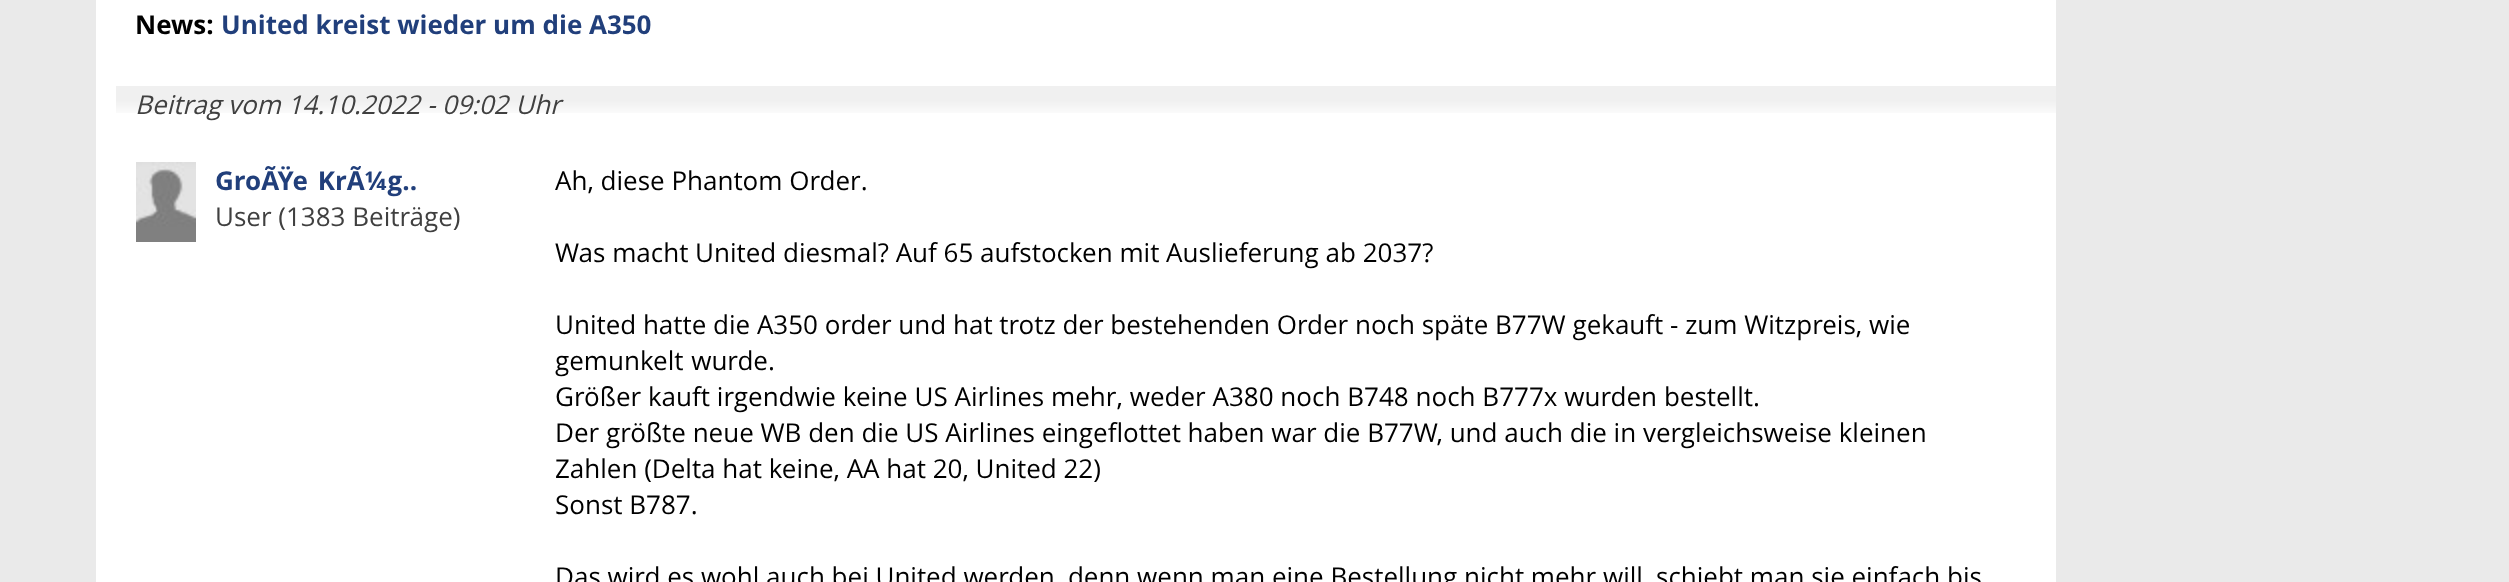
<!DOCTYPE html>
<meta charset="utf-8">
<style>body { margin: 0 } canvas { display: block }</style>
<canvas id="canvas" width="2509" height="582"></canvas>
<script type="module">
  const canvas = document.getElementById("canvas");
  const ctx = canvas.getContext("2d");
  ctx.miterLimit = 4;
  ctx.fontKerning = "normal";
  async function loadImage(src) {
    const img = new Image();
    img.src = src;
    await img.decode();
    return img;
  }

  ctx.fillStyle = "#eaeaea";
  ctx.fillRect(0, 0, 2509, 582);
  ctx.fillStyle = "#ffffff";
  ctx.fillRect(96, 0, 1960, 582);
  ctx.font = "bold 26px Open Sans";
  ctx.fillStyle = "#000000";
  ctx.fillText("News:", 135, 34);
  ctx.fillStyle = "#213f7b";
  ctx.fillText("United kreist wieder um die A350", 221, 34);
  ctx.drawImage(await loadImage("img1.png"), 116, 86, 1940, 27);
  ctx.font = "italic 26px Open Sans";
  ctx.fillStyle = "#404040";
  ctx.fillText("Beitrag vom 14.10.2022 - 09:02 Uhr", 135, 114);
  ctx.drawImage(await loadImage("img2.png"), 136, 162, 60, 80);
  ctx.wordSpacing = "3px";
  ctx.font = "bold 26px Open Sans";
  ctx.fillStyle = "#213f7b";
  ctx.fillText("GroÃŸe KrÃ¼g..", 215, 190);
  ctx.wordSpacing = "0px";
  ctx.font = "26px Open Sans";
  ctx.fillStyle = "#404040";
  ctx.fillText("User (1383 Beiträge)", 215, 226);
  ctx.fillStyle = "#000000";
  ctx.fillText("Ah, diese Phantom Order.", 555, 190);
  ctx.fillText("Was macht United diesmal? Auf 65 aufstocken mit Auslieferung ab 2037?", 555, 262);
  ctx.fillText("United hatte die A350 order und hat trotz der bestehenden Order noch späte B77W gekauft - zum Witzpreis, wie", 555, 334);
  ctx.wordSpacing = "1px";
  ctx.fillText("gemunkelt wurde.", 555, 370);
  ctx.wordSpacing = "0.1px";
  ctx.fillText("Größer kauft irgendwie keine US Airlines mehr, weder A380 noch B748 noch B777x wurden bestellt.", 555, 406);
  ctx.wordSpacing = "0px";
  ctx.fillText("Der größte neue WB den die US Airlines eingeflottet haben war die B77W, und auch die in vergleichsweise kleinen", 555, 442);
  ctx.fillText("Zahlen (Delta hat keine, AA hat 20, United 22)", 555, 478);
  ctx.fillText("Sonst B787.", 555, 514);
  ctx.fillText("Das wird es wohl auch bei United werden, denn wenn man eine Bestellung nicht mehr will, schiebt man sie einfach bis", 555, 586);
</script>
